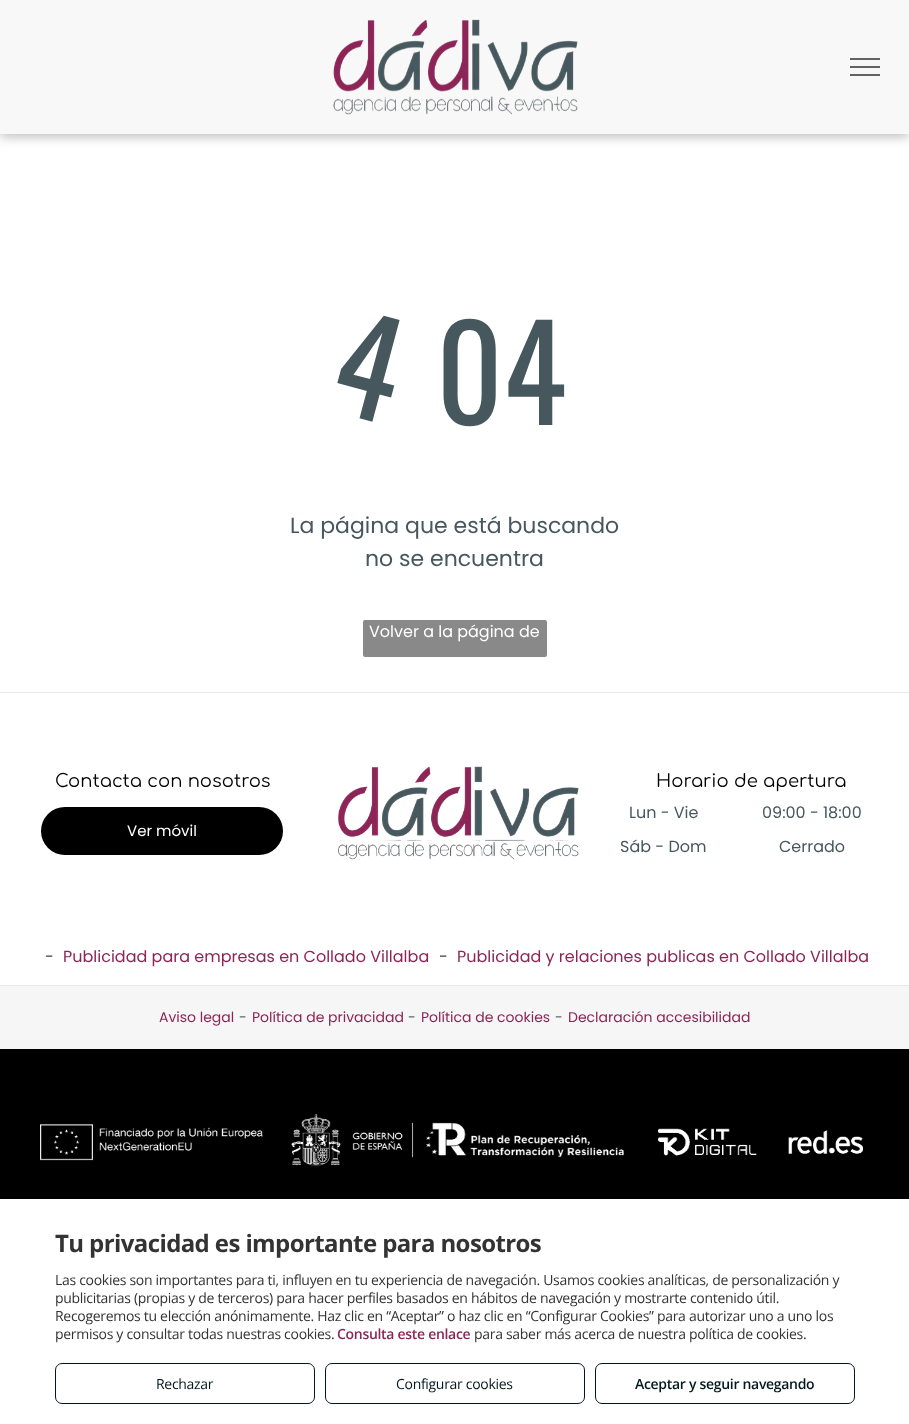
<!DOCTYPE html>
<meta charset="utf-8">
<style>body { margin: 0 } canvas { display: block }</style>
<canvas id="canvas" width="909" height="1424"></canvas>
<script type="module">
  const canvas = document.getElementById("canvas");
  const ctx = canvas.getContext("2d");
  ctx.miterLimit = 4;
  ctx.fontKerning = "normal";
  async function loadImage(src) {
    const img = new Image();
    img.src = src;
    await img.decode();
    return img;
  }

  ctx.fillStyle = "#ffffff";
  ctx.fillRect(0, 0, 909, 1424);
  ctx.fillStyle = "rgba(0, 0, 0, 0.25)";
  ctx.filter = "blur(5.5px)";
  ctx.beginPath();
  ctx.rect(0, 3, 909, 134);
  ctx.fill();
  ctx.filter = "none";
  ctx.fillStyle = "#f8f8f8";
  ctx.fillRect(0, 0, 909, 134);
  ctx.drawImage(await loadImage("img1.png"), 333, 19, 245, 96);
  ctx.fillStyle = "#646262";
  ctx.fillRect(850, 58, 30, 2);
  ctx.fillRect(850, 66, 30, 2);
  ctx.fillRect(850, 74, 30, 2);
  ctx.font = "130px Oswald";
  ctx.fillStyle = "#47575e";
  ctx.save();
  ctx.translate(325, 409);
  ctx.rotate(15 * Math.PI / 180);
  ctx.fillText("4", 0, 0);
  ctx.restore();
  ctx.fillText("04", 436, 425);
  ctx.font = "22px Poppins";
  ctx.fillText("La página que está buscando", 290, 533);
  ctx.fillText("no se encuentra", 365, 566);
  ctx.fillStyle = "#898989";
  ctx.beginPath();
  ctx.roundRect(363, 620, 184, 37, 2);
  ctx.fill();
  ctx.font = "16px Poppins";
  ctx.fillStyle = "#ffffff";
  ctx.fillText("Volver a la página de", 369, 637);
  ctx.fillStyle = "#e8e8e8";
  ctx.fillRect(0, 692, 909, 1);
  ctx.font = "18px Comfortaa";
  ctx.fillStyle = "#000000";
  ctx.fillText("Contacta con nosotros", 55, 787);
  ctx.beginPath();
  ctx.roundRect(41, 807, 242, 48, 24);
  ctx.fill();
  ctx.font = "15px Poppins";
  ctx.fillStyle = "#ffffff";
  ctx.fillText("Ver móvil", 127, 836);
  ctx.drawImage(await loadImage("img2.png"), 338, 766, 241, 94);
  ctx.font = "18px Comfortaa";
  ctx.fillStyle = "#000000";
  ctx.fillText("Horario de apertura", 656, 787);
  ctx.font = "16px Poppins";
  ctx.fillStyle = "#47575e";
  ctx.fillText("Lun - Vie", 629, 818);
  ctx.fillText("09:00 - 18:00", 762, 818);
  ctx.fillText("Sáb - Dom", 620, 852);
  ctx.fillText("Cerrado", 779, 852);
  ctx.fillStyle = "#463939";
  ctx.fillText("-", 45, 962);
  ctx.fillStyle = "#8c2557";
  ctx.fillText("Publicidad para empresas en Collado Villalba", 63, 962);
  ctx.fillStyle = "#463939";
  ctx.fillText("-", 439, 962);
  ctx.fillStyle = "#8c2557";
  ctx.fillText("Publicidad y relaciones publicas en Collado Villalba", 457, 962);
  ctx.fillStyle = "#f6f6f6";
  ctx.fillRect(0, 986, 909, 63);
  ctx.fillStyle = "#e8e8e8";
  ctx.fillRect(0, 985, 909, 1);
  ctx.font = "14px Poppins";
  ctx.fillStyle = "#8c2557";
  ctx.fillText("Aviso legal", 159, 1022);
  ctx.fillStyle = "#47575e";
  ctx.fillText("-", 239, 1022);
  ctx.fillStyle = "#8c2557";
  ctx.fillText("Política de privacidad", 252, 1022);
  ctx.fillStyle = "#47575e";
  ctx.fillText("-", 408, 1022);
  ctx.fillStyle = "#8c2557";
  ctx.fillText("Política de cookies", 421, 1022);
  ctx.fillStyle = "#47575e";
  ctx.fillText("-", 555, 1022);
  ctx.fillStyle = "#8c2557";
  ctx.fillText("Declaración accesibilidad", 568, 1022);
  ctx.fillStyle = "#000000";
  ctx.fillRect(0, 1049, 909, 150);
  ctx.drawImage(await loadImage("img3.png"), 40, 1114, 824, 52);
  ctx.letterSpacing = "-0.6px";
  ctx.font = "bold 24px Open Sans";
  ctx.fillStyle = "#333333";
  ctx.fillText("Tu privacidad es importante para nosotros", 55, 1252);
  ctx.letterSpacing = "-0.3px";
  ctx.font = "14px Open Sans";
  ctx.fillText("Las cookies son importantes para ti, influyen en tu experiencia de navegación. Usamos cookies analíticas, de personalización y", 55, 1285);
  ctx.fillText("publicitarias (propias y de terceros) para hacer perfiles basados en hábitos de navegación y mostrarte contenido útil.", 55, 1303);
  ctx.fillText("Recogeremos tu elección anónimamente. Haz clic en “Aceptar” o haz clic en “Configurar Cookies” para autorizar uno a uno los", 55, 1321);
  ctx.fillText("permisos y consultar todas nuestras cookies.", 55, 1339);
  ctx.font = "600 14px Open Sans";
  ctx.fillStyle = "#8c2557";
  ctx.fillText("Consulta este enlace", 337, 1339);
  ctx.font = "14px Open Sans";
  ctx.fillStyle = "#333333";
  ctx.fillText("para saber más acerca de nuestra política de cookies.", 474, 1339);
  ctx.beginPath();
  ctx.roundRect(55.5, 1363.5, 259, 40, 6.5);
  ctx.strokeStyle = "#03181e";
  ctx.stroke();
  ctx.fillStyle = "#03181e";
  ctx.fillText("Rechazar", 156, 1389);
  ctx.beginPath();
  ctx.roundRect(325.5, 1363.5, 259, 40, 6.5);
  ctx.stroke();
  ctx.fillText("Configurar cookies", 396, 1389);
  ctx.beginPath();
  ctx.roundRect(595.5, 1363.5, 259, 40, 6.5);
  ctx.stroke();
  ctx.font = "600 14px Open Sans";
  ctx.fillText("Aceptar y seguir navegando", 635, 1389);
</script>
